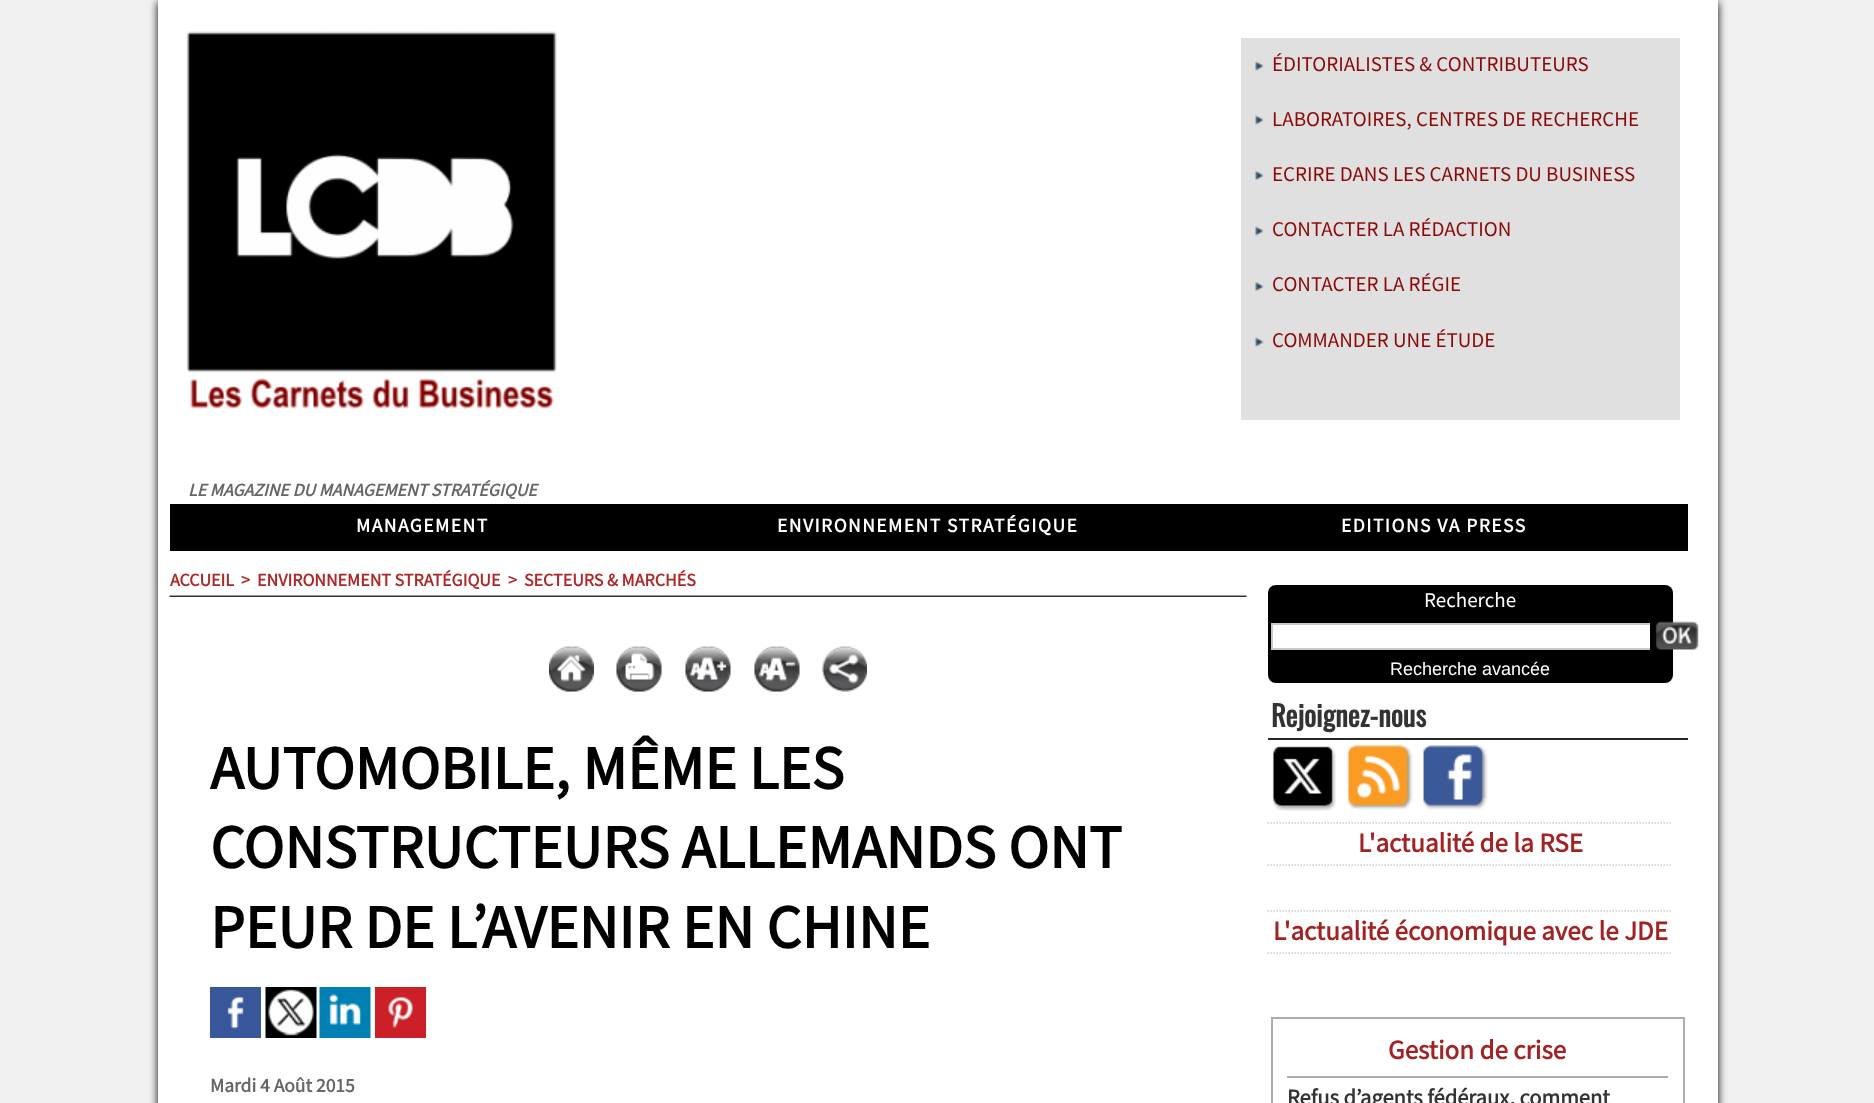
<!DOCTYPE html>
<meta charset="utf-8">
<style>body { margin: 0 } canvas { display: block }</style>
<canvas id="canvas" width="1874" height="1103"></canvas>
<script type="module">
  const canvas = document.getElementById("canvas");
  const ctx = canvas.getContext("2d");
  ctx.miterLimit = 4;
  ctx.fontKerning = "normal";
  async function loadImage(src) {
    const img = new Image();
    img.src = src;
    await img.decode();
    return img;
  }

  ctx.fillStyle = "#f0f0f0";
  ctx.fillRect(0, 0, 1874, 1103);
  ctx.fillStyle = "#000000";
  ctx.filter = "blur(4.5px)";
  ctx.beginPath();
  ctx.rect(158, 2, 1560, 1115);
  ctx.fill();
  ctx.filter = "none";
  ctx.fillStyle = "#ffffff";
  ctx.fillRect(158, 0, 1560, 1103);
  ctx.drawImage(await loadImage("img1.png"), 186, 31, 371, 378);
  ctx.fillStyle = "#e0e0e0";
  ctx.fillRect(1241, 38, 439, 382);
  ctx.drawImage(await loadImage("img2.png"), 1255, 61, 9, 10);
  ctx.font = "21px Mada";
  ctx.fillStyle = "#8a0808";
  ctx.fillText("ÉDITORIALISTES & CONTRIBUTEURS", 1272, 71);
  ctx.drawImage(await loadImage("img2.png"), 1255, 115, 9, 10);
  ctx.fillText("LABORATOIRES, CENTRES DE RECHERCHE", 1272, 126);
  ctx.drawImage(await loadImage("img3.png"), 1255, 171, 9, 9);
  ctx.fillText("ECRIRE DANS LES CARNETS DU BUSINESS", 1272, 181);
  ctx.drawImage(await loadImage("img2.png"), 1255, 226, 9, 10);
  ctx.fillText("CONTACTER LA RÉDACTION", 1272, 236);
  ctx.drawImage(await loadImage("img3.png"), 1255, 282, 9, 9);
  ctx.fillText("CONTACTER LA RÉGIE", 1272, 291);
  ctx.drawImage(await loadImage("img2.png"), 1255, 337, 9, 10);
  ctx.fillText("COMMANDER UNE ÉTUDE", 1272, 347);
  ctx.font = "italic bold 18px Mada";
  ctx.fillStyle = "#666666";
  ctx.fillText("LE MAGAZINE DU MANAGEMENT STRATÉGIQUE", 188, 496);
  ctx.fillStyle = "#000000";
  ctx.fillRect(170, 504, 1518, 47);
  ctx.letterSpacing = "1.5px";
  ctx.font = "bold 19.5px Mada";
  ctx.fillStyle = "#ffffff";
  ctx.fillText("MANAGEMENT", 356, 532);
  ctx.fillText("ENVIRONNEMENT STRATÉGIQUE", 777, 532);
  ctx.fillText("EDITIONS VA PRESS", 1341, 532);
  ctx.letterSpacing = "0px";
  ctx.font = "bold 18px Mada";
  ctx.fillStyle = "#ad2929";
  ctx.fillText("ACCUEIL", 170, 586);
  ctx.fillText(">", 241, 586);
  ctx.fillText("ENVIRONNEMENT STRATÉGIQUE", 257, 586);
  ctx.fillText(">", 508, 586);
  ctx.fillText("SECTEURS & MARCHÉS", 524, 586);
  ctx.drawImage(await loadImage("img4.png"), 169, 595, 1078, 2);
  ctx.drawImage(await loadImage("img5.png"), 549, 646, 45, 46);
  ctx.drawImage(await loadImage("img6.png"), 616, 646, 46, 46);
  ctx.drawImage(await loadImage("img7.png"), 685, 646, 46, 46);
  ctx.drawImage(await loadImage("img8.png"), 754, 646, 46, 46);
  ctx.drawImage(await loadImage("img9.png"), 822, 646, 45, 46);
  ctx.font = "bold 61.5px Mada";
  ctx.fillStyle = "#000000";
  ctx.fillText("AUTOMOBILE, MÊME LES", 210, 789);
  ctx.fillText("CONSTRUCTEURS ALLEMANDS ONT", 210, 868);
  ctx.fillText("PEUR DE L’AVENIR EN CHINE", 210, 948);
  ctx.drawImage(await loadImage("img10.png"), 210, 987, 51, 51);
  ctx.drawImage(await loadImage("img11.png"), 265, 987, 52, 51);
  ctx.drawImage(await loadImage("img12.png"), 319, 987, 52, 51);
  ctx.drawImage(await loadImage("img13.png"), 375, 987, 51, 51);
  ctx.font = "bold 19.5px Mada";
  ctx.fillStyle = "#666666";
  ctx.fillText("Mardi 4 Août 2015", 210, 1092);
  ctx.fillStyle = "#000000";
  ctx.beginPath();
  ctx.roundRect(1268, 585, 405, 33, [8, 8, 0, 0]);
  ctx.fill();
  ctx.font = "21px Mada";
  ctx.fillStyle = "#ffffff";
  ctx.fillText("Recherche", 1424, 607);
  ctx.fillStyle = "#000000";
  ctx.beginPath();
  ctx.roundRect(1268, 618, 405, 65, [0, 0, 8, 8]);
  ctx.fill();
  ctx.fillStyle = "#ffffff";
  ctx.fillRect(1273, 625, 377, 23);
  ctx.fillStyle = "#c9c9c9";
  ctx.fillRect(1271, 623, 379, 2);
  ctx.fillRect(1271, 648, 379, 2);
  ctx.fillRect(1271, 623, 2, 27);
  ctx.drawImage(await loadImage("img14.png"), 1655, 621, 44, 29);
  ctx.font = "18px Liberation Sans";
  ctx.fillStyle = "#ffffff";
  ctx.fillText("Recherche avancée", 1390, 675);
  ctx.fillStyle = "#282828";
  ctx.fillRect(1268, 738, 420, 2);
  ctx.font = "bold 28.5px Oswald";
  ctx.fillStyle = "#333333";
  ctx.fillText("Rejoignez-nous", 1271, 727);
  ctx.drawImage(await loadImage("img15.png"), 1272, 746, 64, 65);
  ctx.drawImage(await loadImage("img16.png"), 1347, 744, 66, 66);
  ctx.drawImage(await loadImage("img17.png"), 1423, 745, 65, 65);
  ctx.beginPath();
  ctx.moveTo(1267.5, 823);
  ctx.lineTo(1672.5, 823);
  ctx.strokeStyle = "#cccccc";
  ctx.lineWidth = 1.5;
  ctx.setLineDash([1.5, 1.5]);
  ctx.stroke();
  ctx.beginPath();
  ctx.moveTo(1267.5, 865);
  ctx.lineTo(1672.5, 865);
  ctx.stroke();
  ctx.font = "bold 27px Mada";
  ctx.fillStyle = "#a12323";
  ctx.fillText("L'actualité de la RSE", 1358, 852);
  ctx.beginPath();
  ctx.moveTo(1267.5, 911);
  ctx.lineTo(1672.5, 911);
  ctx.stroke();
  ctx.beginPath();
  ctx.moveTo(1267.5, 953);
  ctx.lineTo(1672.5, 953);
  ctx.stroke();
  ctx.fillText("L'actualité économique avec le JDE", 1273, 940);
  ctx.strokeStyle = "#adadad";
  ctx.lineWidth = 2;
  ctx.setLineDash([]);
  ctx.strokeRect(1272, 1018, 412, 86);
  ctx.fillStyle = "#adadad";
  ctx.fillRect(1287, 1076, 381, 2);
  ctx.fillStyle = "#a12323";
  ctx.fillText("Gestion de crise", 1388, 1059);
  ctx.font = "bold 22.5px Mada";
  ctx.fillStyle = "#333333";
  ctx.fillText("Refus d’agents fédéraux, comment", 1287, 1105);
</script>
